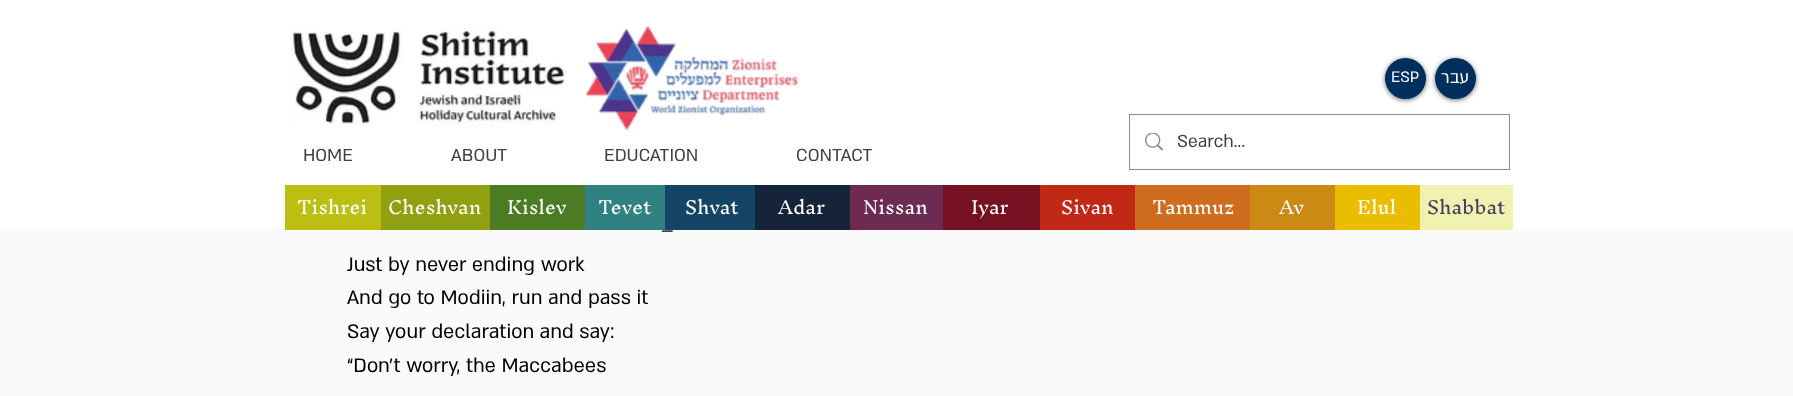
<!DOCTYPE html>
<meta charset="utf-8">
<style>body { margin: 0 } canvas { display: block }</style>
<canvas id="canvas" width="1793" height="396"></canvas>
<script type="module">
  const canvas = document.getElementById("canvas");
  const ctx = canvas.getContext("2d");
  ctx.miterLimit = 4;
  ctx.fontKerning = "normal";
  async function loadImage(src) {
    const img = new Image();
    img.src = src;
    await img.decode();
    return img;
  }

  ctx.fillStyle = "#fafafa";
  ctx.fillRect(0, 0, 1793, 396);
  ctx.fillStyle = "#ffffff";
  ctx.fillRect(0, 0, 1793, 229);
  ctx.drawImage(await loadImage("img1.png"), 291, 29, 275, 97);
  ctx.drawImage(await loadImage("img2.png"), 586, 26, 212, 105);
  ctx.fillStyle = "rgba(0, 0, 0, 0.6)";
  ctx.filter = "blur(2.5px)";
  ctx.beginPath();
  ctx.roundRect(1385, 59, 41, 41, 20.5);
  ctx.fill();
  ctx.filter = "none";
  ctx.fillStyle = "#002e5d";
  ctx.beginPath();
  ctx.arc(1405.5, 78.5, 20.5, 0, Math.PI * 2);
  ctx.fill();
  ctx.font = "17.5px 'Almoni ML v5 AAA'";
  ctx.fillStyle = "#ffffff";
  ctx.fillText("ESP", 1391, 82);
  ctx.fillStyle = "rgba(0, 0, 0, 0.6)";
  ctx.filter = "blur(2.5px)";
  ctx.beginPath();
  ctx.roundRect(1435, 59, 41, 41, 20.5);
  ctx.fill();
  ctx.filter = "none";
  ctx.fillStyle = "#002e5d";
  ctx.beginPath();
  ctx.arc(1455.5, 78.5, 20.5, 0, Math.PI * 2);
  ctx.fill();
  ctx.direction = "rtl";
  ctx.font = "19px 'Almoni ML v5 AAA'";
  ctx.fillStyle = "#ffffff";
  ctx.fillText("עבר", 1469, 83);
  ctx.strokeStyle = "#8d8d8d";
  ctx.strokeRect(1129.5, 114.5, 380, 55);
  ctx.drawImage(await loadImage("img3.png"), 1145, 133, 18, 18);
  ctx.direction = "ltr";
  ctx.font = "20px 'Almoni ML v5 AAA'";
  ctx.fillStyle = "#414141";
  ctx.fillText("Search...", 1177, 147);
  ctx.fillText("HOME", 303, 161);
  ctx.fillText("ABOUT", 451, 161);
  ctx.fillText("EDUCATION", 604, 161);
  ctx.fillText("CONTACT", 796, 161);
  ctx.fillStyle = "#bcbe11";
  ctx.fillRect(285, 185, 96, 45);
  ctx.font = "300 17.5px Inknut Antiqua";
  ctx.fillStyle = "#ffffff";
  ctx.fillText("Tishrei", 297, 214);
  ctx.fillStyle = "#91a011";
  ctx.fillRect(381, 185, 109, 45);
  ctx.fillStyle = "#ffffff";
  ctx.fillText("Cheshvan", 388, 214);
  ctx.fillStyle = "#4b7c23";
  ctx.fillRect(490, 185, 95, 45);
  ctx.fillStyle = "#ffffff";
  ctx.fillText("Kislev", 507, 214);
  ctx.fillStyle = "#308182";
  ctx.fillRect(585, 185, 80, 45);
  ctx.fillStyle = "#ffffff";
  ctx.fillText("Tevet", 598, 214);
  ctx.fillStyle = "#144566";
  ctx.fillRect(665, 185, 90, 45);
  ctx.fillStyle = "#ffffff";
  ctx.fillText("Shvat", 685, 214);
  ctx.fillStyle = "#15243b";
  ctx.fillRect(755, 185, 95, 45);
  ctx.fillStyle = "#ffffff";
  ctx.fillText("Adar", 778, 214);
  ctx.fillStyle = "#6e2b52";
  ctx.fillRect(850, 185, 93, 45);
  ctx.fillStyle = "#ffffff";
  ctx.fillText("Nissan", 863, 214);
  ctx.fillStyle = "#751120";
  ctx.fillRect(943, 185, 97, 45);
  ctx.fillStyle = "#ffffff";
  ctx.fillText("Iyar", 971, 214);
  ctx.fillStyle = "#c22816";
  ctx.fillRect(1040, 185, 95, 45);
  ctx.fillStyle = "#ffffff";
  ctx.fillText("Sivan", 1061, 214);
  ctx.fillStyle = "#ce6c20";
  ctx.fillRect(1135, 185, 115, 45);
  ctx.fillStyle = "#ffffff";
  ctx.fillText("Tammuz", 1152, 214);
  ctx.fillStyle = "#cc8a14";
  ctx.fillRect(1250, 185, 85, 45);
  ctx.fillStyle = "#ffffff";
  ctx.fillText("Av", 1279, 214);
  ctx.fillStyle = "#ebbd00";
  ctx.fillRect(1335, 185, 85, 45);
  ctx.fillStyle = "#ffffff";
  ctx.fillText("Elul", 1357, 214);
  ctx.fillStyle = "#f1f2b1";
  ctx.fillRect(1420, 185, 93, 45);
  ctx.fillStyle = "#403e5e";
  ctx.fillText("Shabbat", 1427, 214);
  ctx.font = "22.5px 'Almoni ML v5 AAA'";
  ctx.fillStyle = "#000000";
  ctx.fillText("–", 661, 237);
  ctx.fillText("Just by never ending work", 347, 271);
  ctx.fillText("And go to Modiin, run and pass it", 347, 304);
  ctx.fillText("Say your declaration and say:", 347, 338);
  ctx.fillText("“Don’t worry, the Maccabees", 347, 372);
</script>
